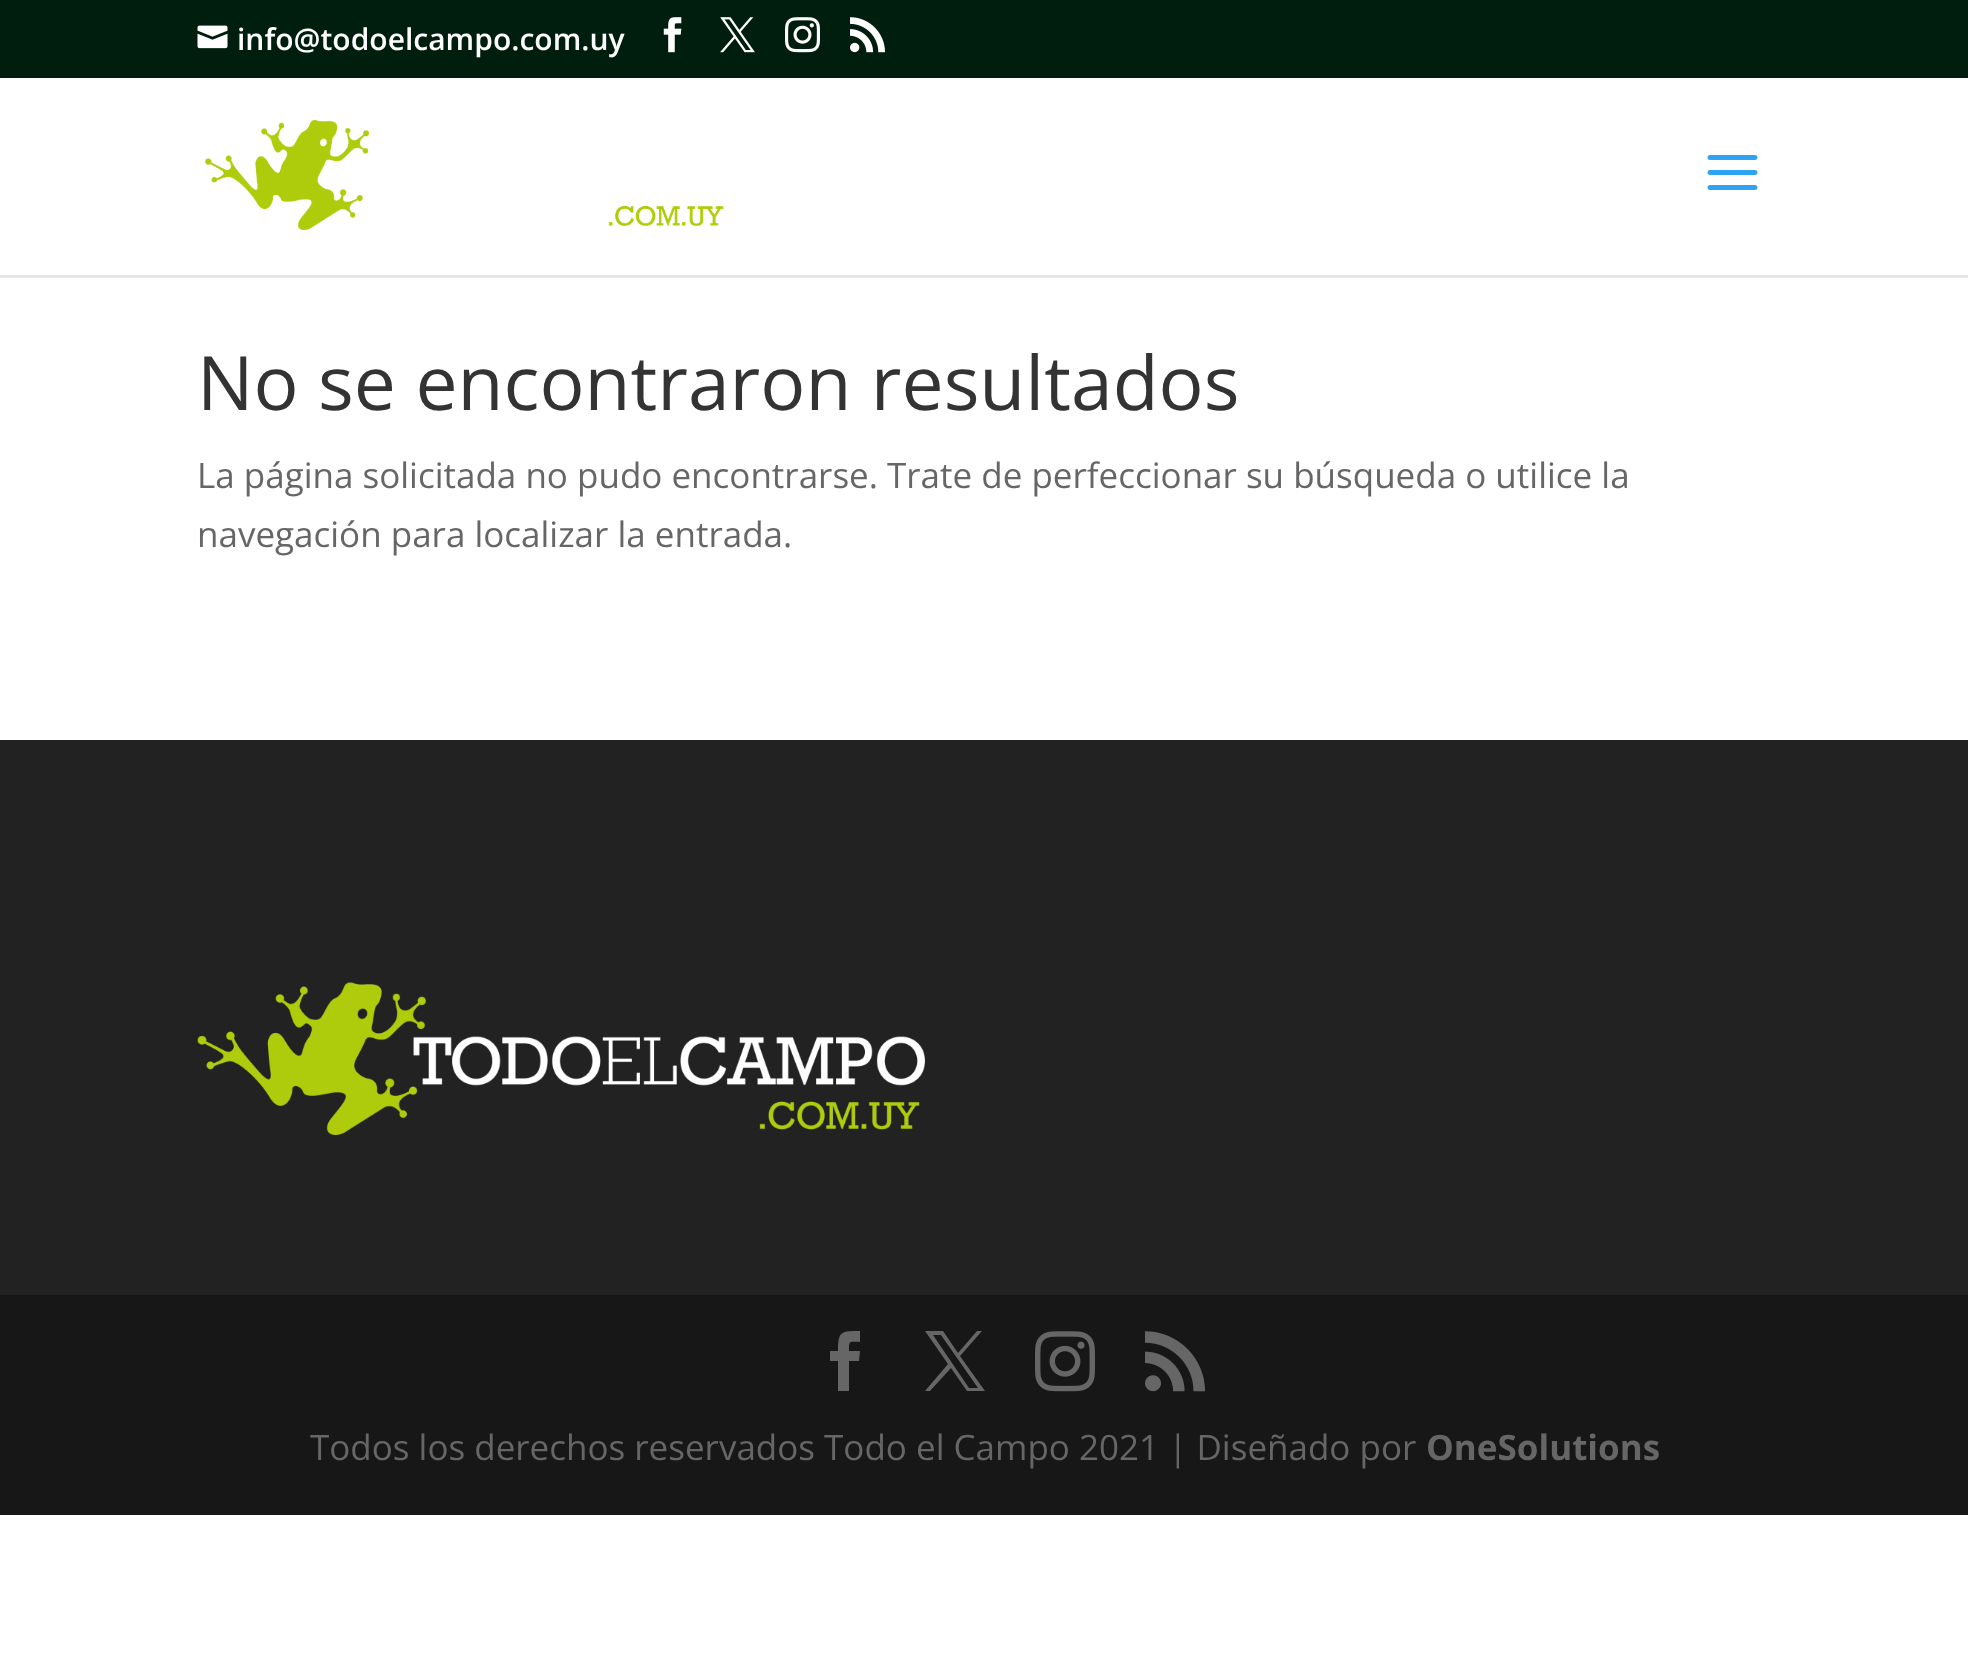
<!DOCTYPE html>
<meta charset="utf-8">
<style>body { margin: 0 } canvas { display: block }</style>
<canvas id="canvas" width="1968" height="1680"></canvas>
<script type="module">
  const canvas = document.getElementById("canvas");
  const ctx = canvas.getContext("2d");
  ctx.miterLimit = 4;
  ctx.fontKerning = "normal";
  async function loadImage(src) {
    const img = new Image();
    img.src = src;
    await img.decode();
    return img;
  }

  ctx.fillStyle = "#ffffff";
  ctx.fillRect(0, 0, 1968, 1680);
  ctx.fillStyle = "#001e0d";
  ctx.fillRect(0, 0, 1968, 78);
  ctx.drawImage(await loadImage("img1.png"), 197, 25, 31, 24);
  ctx.font = "600 30px Open Sans";
  ctx.fillStyle = "#ffffff";
  ctx.fillText("info@todoelcampo.com.uy", 237, 50);
  ctx.drawImage(await loadImage("img2.png"), 663, 17, 19, 36);
  ctx.drawImage(await loadImage("img3.png"), 720, 17, 35, 36);
  ctx.drawImage(await loadImage("img4.png"), 785, 17, 35, 36);
  ctx.drawImage(await loadImage("img5.png"), 850, 17, 35, 36);
  ctx.fillStyle = "#e6e6e6";
  ctx.fillRect(0, 275, 1968, 3);
  ctx.drawImage(await loadImage("img6.png"), 205, 120, 519, 110);
  ctx.drawImage(await loadImage("img7.png"), 1707, 155, 51, 35);
  ctx.font = "75px Open Sans";
  ctx.fillStyle = "#333333";
  ctx.fillText("No se encontraron resultados", 197, 410);
  ctx.font = "35px Open Sans";
  ctx.fillStyle = "#666666";
  ctx.fillText("La página solicitada no pudo encontrarse. Trate de perfeccionar su búsqueda o utilice la", 197, 488);
  ctx.fillText("navegación para localizar la entrada.", 197, 547);
  ctx.fillStyle = "#222222";
  ctx.fillRect(0, 740, 1968, 555);
  ctx.drawImage(await loadImage("img8.png"), 197, 982, 728, 153);
  ctx.fillStyle = "#171717";
  ctx.fillRect(0, 1295, 1968, 220);
  ctx.fillStyle = "#666666";
  ctx.beginPath();
  ctx.moveTo(838, 1391);
  ctx.lineTo(849, 1391);
  ctx.lineTo(849, 1361);
  ctx.lineTo(859, 1361);
  ctx.lineTo(860, 1351);
  ctx.lineTo(849, 1351);
  ctx.bezierCurveTo(849, 1340, 849, 1342, 860, 1342);
  ctx.lineTo(860, 1331);
  ctx.bezierCurveTo(841, 1331, 838, 1331, 838, 1351);
  ctx.lineTo(830, 1351);
  ctx.lineTo(830, 1361);
  ctx.lineTo(838, 1361);
  ctx.closePath();
  ctx.fill();
  ctx.beginPath();
  ctx.moveTo(925, 1331);
  ctx.lineTo(948, 1364);
  ctx.lineTo(925, 1391);
  ctx.lineTo(930, 1391);
  ctx.lineTo(951, 1368);
  ctx.lineTo(967, 1391);
  ctx.lineTo(985, 1391);
  ctx.lineTo(960, 1356);
  ctx.lineTo(982, 1331);
  ctx.lineTo(977, 1331);
  ctx.lineTo(958, 1353);
  ctx.lineTo(943, 1331);
  ctx.closePath();
  ctx.moveTo(933, 1335);
  ctx.lineTo(941, 1335);
  ctx.lineTo(978, 1388);
  ctx.lineTo(969, 1388);
  ctx.closePath();
  ctx.fill();
  ctx.drawImage(await loadImage("img9.png"), 1035, 1331, 60, 61);
  ctx.drawImage(await loadImage("img10.png"), 1145, 1331, 60, 61);
  ctx.fillText("Todos los derechos reservados Todo el Campo 2021 | Diseñado por", 310, 1460);
  ctx.font = "bold 35px Open Sans";
  ctx.fillText("OneSolutions", 1426, 1460);
</script>
